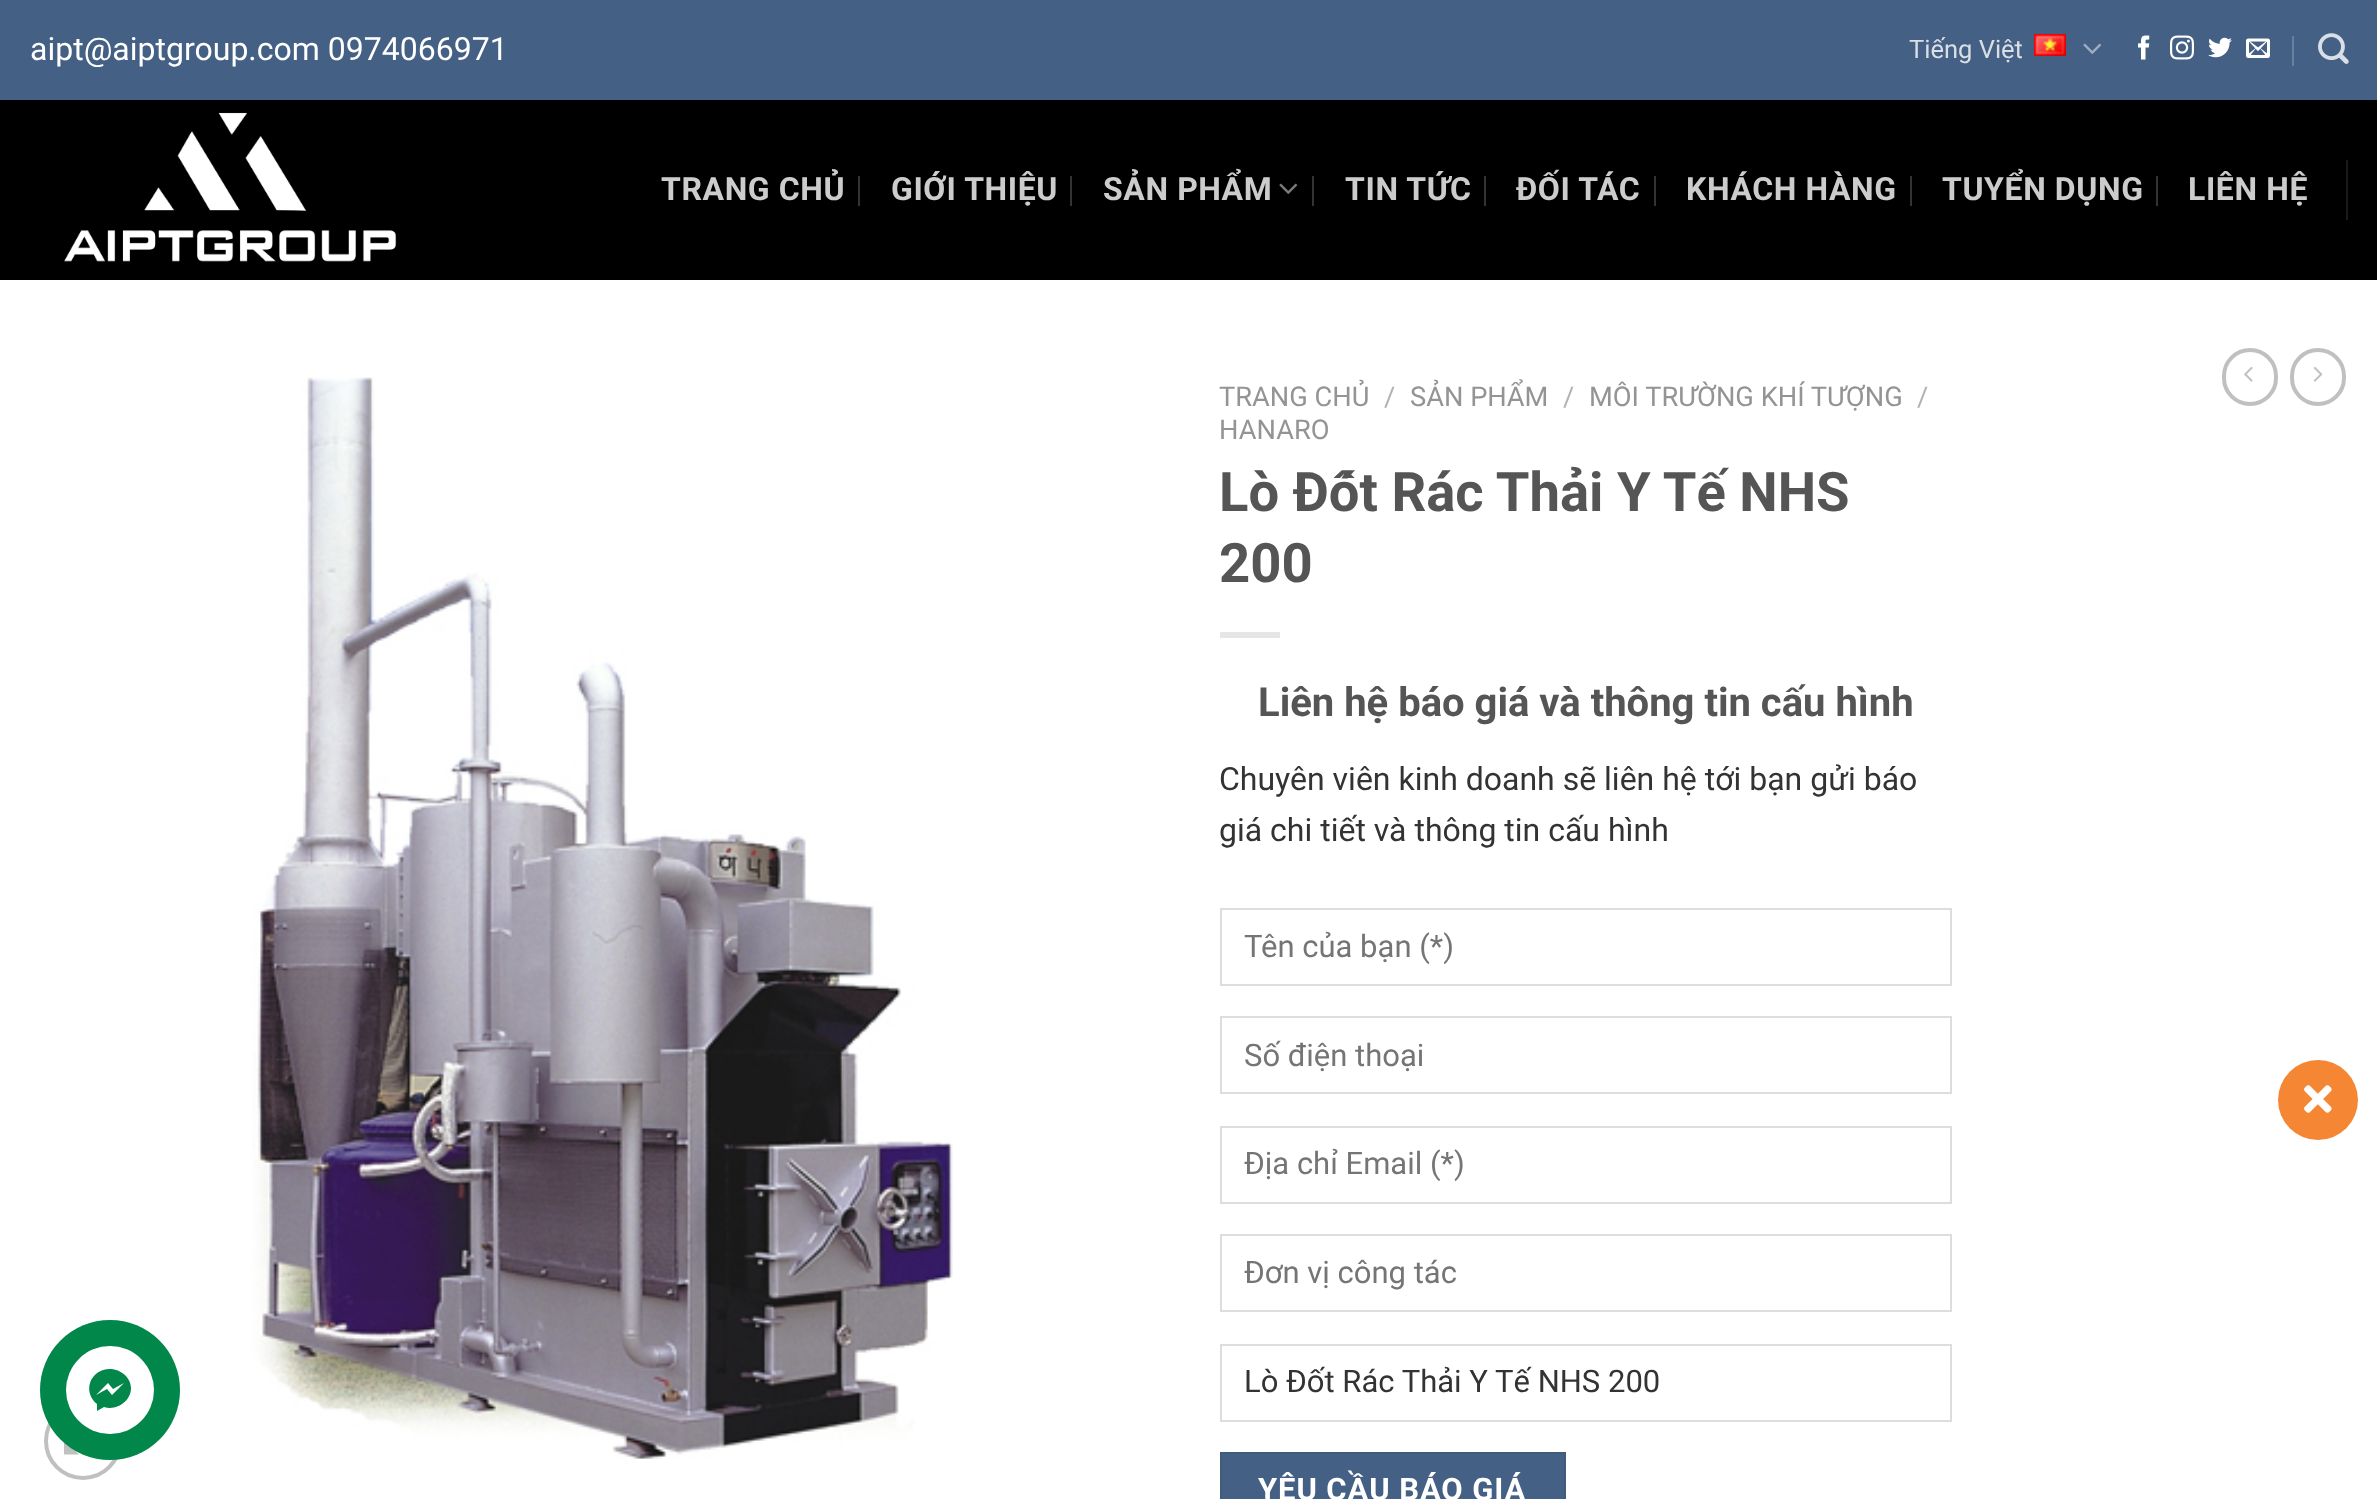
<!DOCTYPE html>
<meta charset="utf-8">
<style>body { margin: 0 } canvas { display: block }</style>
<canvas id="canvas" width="2377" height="1499"></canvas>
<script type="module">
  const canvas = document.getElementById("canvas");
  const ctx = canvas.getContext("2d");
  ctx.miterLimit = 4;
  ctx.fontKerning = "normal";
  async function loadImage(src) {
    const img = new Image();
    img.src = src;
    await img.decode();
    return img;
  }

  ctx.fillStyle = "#ffffff";
  ctx.fillRect(0, 0, 2377, 1499);
  ctx.fillStyle = "#446084";
  ctx.fillRect(0, 0, 2377, 100);
  ctx.font = "32px Roboto";
  ctx.fillStyle = "#ffffff";
  ctx.fillText("aipt@aiptgroup.com 0974066971", 30, 60);
  ctx.font = "25.5px Roboto";
  ctx.fillStyle = "#dadfe6";
  ctx.fillText("Tiếng Việt", 1909, 58);
  ctx.drawImage(await loadImage("img1.png"), 2034, 34, 32, 22);
  ctx.drawImage(await loadImage("img2.png"), 2083, 43, 19, 11);
  ctx.drawImage(await loadImage("img3.png"), 2138, 35, 12, 25);
  ctx.drawImage(await loadImage("img4.png"), 2170, 35, 24, 25);
  ctx.drawImage(await loadImage("img5.png"), 2208, 37, 24, 21);
  ctx.drawImage(await loadImage("img6.png"), 2246, 38, 24, 20);
  ctx.fillStyle = "#69809d";
  ctx.fillRect(2292, 36, 2, 30);
  ctx.drawImage(await loadImage("img7.png"), 2318, 33, 31, 31);
  ctx.fillStyle = "#000000";
  ctx.fillRect(0, 100, 2377, 180);
  ctx.drawImage(await loadImage("img8.png"), 64, 112, 333, 150);
  ctx.letterSpacing = "0.6px";
  ctx.font = "bold 32px Roboto";
  ctx.fillStyle = "#cccccc";
  ctx.fillText("TRANG CHỦ", 661, 200);
  ctx.fillStyle = "#333333";
  ctx.fillRect(858, 176, 2, 30);
  ctx.fillStyle = "#cccccc";
  ctx.fillText("GIỚI THIỆU", 891, 200);
  ctx.fillStyle = "#333333";
  ctx.fillRect(1070, 176, 2, 30);
  ctx.fillStyle = "#cccccc";
  ctx.fillText("SẢN PHẨM", 1103, 200);
  ctx.drawImage(await loadImage("img9.png"), 1279, 183, 19, 11);
  ctx.fillStyle = "#333333";
  ctx.fillRect(1312, 176, 2, 30);
  ctx.fillStyle = "#cccccc";
  ctx.fillText("TIN TỨC", 1345, 200);
  ctx.fillStyle = "#333333";
  ctx.fillRect(1484, 176, 2, 30);
  ctx.fillStyle = "#cccccc";
  ctx.fillText("ĐỐI TÁC", 1516, 200);
  ctx.fillStyle = "#333333";
  ctx.fillRect(1654, 176, 2, 30);
  ctx.fillStyle = "#cccccc";
  ctx.fillText("KHÁCH HÀNG", 1686, 200);
  ctx.fillStyle = "#333333";
  ctx.fillRect(1910, 176, 2, 30);
  ctx.fillStyle = "#cccccc";
  ctx.fillText("TUYỂN DỤNG", 1942, 200);
  ctx.fillStyle = "#333333";
  ctx.fillRect(2156, 176, 2, 30);
  ctx.fillStyle = "#cccccc";
  ctx.fillText("LIÊN HỆ", 2188, 200);
  ctx.fillStyle = "#1a1a1a";
  ctx.fillRect(2346, 160, 2, 60);
  ctx.beginPath();
  ctx.arc(83, 1441, 37, 0, Math.PI * 2);
  ctx.strokeStyle = "#c0c0c0";
  ctx.lineWidth = 4;
  ctx.stroke();
  ctx.fillStyle = "#c0c0c0";
  ctx.beginPath();
  ctx.moveTo(101, 1417);
  ctx.lineTo(101, 1432);
  ctx.lineTo(95.5, 1426.5);
  ctx.lineTo(88.5, 1433.5);
  ctx.lineTo(85, 1430);
  ctx.lineTo(92, 1423);
  ctx.lineTo(86, 1417);
  ctx.closePath();
  ctx.moveTo(80.5, 1441.5);
  ctx.lineTo(73.5, 1448.5);
  ctx.lineTo(79, 1454.5);
  ctx.lineTo(64, 1454.5);
  ctx.lineTo(64, 1439);
  ctx.lineTo(70, 1445);
  ctx.lineTo(77, 1438);
  ctx.closePath();
  ctx.fill();
  ctx.drawImage(await loadImage("img10.png"), 252, 377, 701, 1082);
  ctx.letterSpacing = "0px";
  ctx.font = "27.25px Roboto";
  ctx.fillStyle = "#949494";
  ctx.fillText("TRANG CHỦ", 1219, 406);
  ctx.fillStyle = "#b2b2b2";
  ctx.fillText("/", 1384, 406);
  ctx.fillStyle = "#949494";
  ctx.fillText("SẢN PHẨM", 1410, 406);
  ctx.fillStyle = "#b2b2b2";
  ctx.fillText("/", 1563, 406);
  ctx.fillStyle = "#949494";
  ctx.fillText("MÔI TRƯỜNG KHÍ TƯỢNG", 1589, 406);
  ctx.fillStyle = "#b2b2b2";
  ctx.fillText("/", 1917, 406);
  ctx.fillStyle = "#949494";
  ctx.fillText("HANARO", 1219, 439);
  ctx.font = "bold 54.4px Roboto";
  ctx.fillStyle = "#555555";
  ctx.fillText("Lò Đốt Rác Thải Y Tế NHS", 1219, 511);
  ctx.fillText("200", 1219, 582);
  ctx.fillStyle = "#e6e6e6";
  ctx.fillRect(1220, 632, 60, 6);
  ctx.font = "bold 40px Roboto";
  ctx.fillStyle = "#555555";
  ctx.fillText("Liên hệ báo giá và thông tin cấu hình", 1258, 716);
  ctx.font = "32px Roboto";
  ctx.fillStyle = "#333333";
  ctx.fillText("Chuyên viên kinh doanh sẽ liên hệ tới bạn gửi báo", 1219, 790);
  ctx.fillText("giá chi tiết và thông tin cấu hình", 1219, 841);
  ctx.strokeStyle = "#dddddd";
  ctx.lineWidth = 2;
  ctx.strokeRect(1221, 909, 730, 76);
  ctx.font = "31px Roboto";
  ctx.fillStyle = "#757575";
  ctx.fillText("Tên của bạn (*)", 1244, 957);
  ctx.strokeRect(1221, 1017, 730, 76);
  ctx.fillText("Số điện thoại", 1244, 1066);
  ctx.strokeRect(1221, 1127, 730, 76);
  ctx.fillText("Địa chỉ Email (*)", 1244, 1174);
  ctx.strokeRect(1221, 1235, 730, 76);
  ctx.fillText("Đơn vị công tác", 1244, 1283);
  ctx.strokeRect(1221, 1345, 730, 76);
  ctx.fillStyle = "#333333";
  ctx.fillText("Lò Đốt Rác Thải Y Tế NHS 200", 1244, 1392);
  ctx.fillStyle = "#446084";
  ctx.beginPath();
  ctx.rect(1221, 1453, 344, 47);
  ctx.fill();
  ctx.strokeStyle = "#415b7d";
  ctx.stroke();
  ctx.letterSpacing = "0.9px";
  ctx.font = "bold 31px Roboto";
  ctx.fillStyle = "#ffffff";
  ctx.fillText("YÊU CẦU BÁO GIÁ", 1258, 1500);
  ctx.beginPath();
  ctx.roundRect(2224, 350, 52, 54, 26);
  ctx.strokeStyle = "#c0c0c0";
  ctx.lineWidth = 4;
  ctx.stroke();
  ctx.drawImage(await loadImage("img11.png"), 2244, 366, 9, 16);
  ctx.beginPath();
  ctx.roundRect(2292, 350, 52, 54, 26);
  ctx.stroke();
  ctx.drawImage(await loadImage("img12.png"), 2313, 367, 10, 15);
  ctx.fillStyle = "#f58634";
  ctx.beginPath();
  ctx.arc(2318, 1100, 40, 0, Math.PI * 2);
  ctx.fill();
  ctx.drawImage(await loadImage("img13.png"), 2304, 1085, 28, 28);
  ctx.fillStyle = "#008749";
  ctx.beginPath();
  ctx.arc(110, 1390, 70, 0, Math.PI * 2);
  ctx.fill();
  ctx.fillStyle = "#ffffff";
  ctx.beginPath();
  ctx.arc(110, 1390, 44, 0, Math.PI * 2);
  ctx.fill();
  ctx.fillStyle = "#008749";
  ctx.beginPath();
  ctx.moveTo(110, 1369);
  ctx.bezierCurveTo(90, 1369, 82, 1392, 97, 1404);
  ctx.lineTo(97, 1411);
  ctx.lineTo(104, 1407);
  ctx.bezierCurveTo(117, 1411, 131, 1401, 131, 1388);
  ctx.bezierCurveTo(131, 1378, 121, 1369, 110, 1369);
  ctx.closePath();
  ctx.moveTo(112, 1395);
  ctx.lineTo(107, 1389);
  ctx.lineTo(96, 1395);
  ctx.lineTo(108, 1383);
  ctx.lineTo(113, 1389);
  ctx.lineTo(124, 1383);
  ctx.closePath();
  ctx.fill();
</script>
